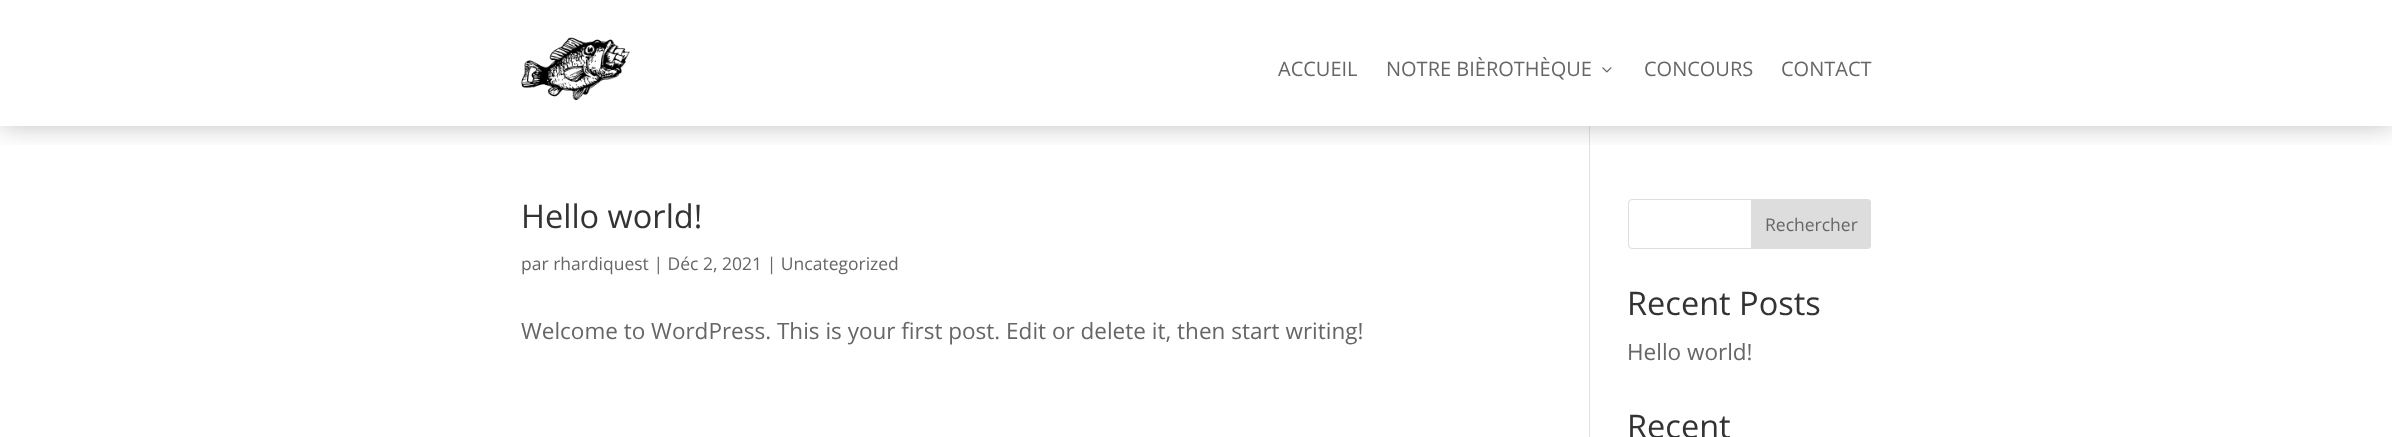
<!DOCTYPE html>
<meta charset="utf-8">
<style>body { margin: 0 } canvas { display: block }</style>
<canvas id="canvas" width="2392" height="437"></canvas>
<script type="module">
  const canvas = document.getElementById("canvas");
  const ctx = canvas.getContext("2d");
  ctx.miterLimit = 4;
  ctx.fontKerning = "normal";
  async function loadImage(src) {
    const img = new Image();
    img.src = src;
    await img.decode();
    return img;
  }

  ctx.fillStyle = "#ffffff";
  ctx.fillRect(0, 0, 2392, 437);
  ctx.fillStyle = "#e2e2e2";
  ctx.fillRect(1589, 126, 1, 311);
  ctx.save();
  ctx.beginPath();
  ctx.rect(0, 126, 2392, 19);
  ctx.clip();
  ctx.fillStyle = "rgba(0, 0, 0, 0.3)";
  ctx.filter = "blur(14.5px)";
  ctx.beginPath();
  ctx.rect(0, -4, 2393, 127);
  ctx.fill();
  ctx.filter = "none";
  ctx.restore();
  ctx.drawImage(await loadImage("img1.png"), 521, 37, 109, 63);
  ctx.font = "20px Open Sans";
  ctx.fillStyle = "#666666";
  ctx.fillText("ACCUEIL", 1278, 76);
  ctx.fillText("NOTRE BIÈROTHÈQUE", 1386, 76);
  ctx.drawImage(await loadImage("img2.png"), 1602, 67, 10, 6);
  ctx.fillText("CONCOURS", 1644, 76);
  ctx.fillText("CONTACT", 1781, 76);
  ctx.font = "32.5px Open Sans";
  ctx.fillStyle = "#333333";
  ctx.fillText("Hello world!", 521, 228);
  ctx.font = "17.5px Open Sans";
  ctx.fillStyle = "#666666";
  ctx.fillText("par rhardiquest | Déc 2, 2021 | Uncategorized", 521, 270);
  ctx.font = "22.5px Open Sans";
  ctx.fillText("Welcome to WordPress. This is your first post. Edit or delete it, then start writing!", 521, 339);
  ctx.beginPath();
  ctx.roundRect(1628.5, 199.5, 242, 49, 3.5);
  ctx.strokeStyle = "#dddddd";
  ctx.stroke();
  ctx.fillStyle = "#dddddd";
  ctx.beginPath();
  ctx.roundRect(1751.5, 199.5, 119, 49, [0, 3.5, 3.5, 0]);
  ctx.fill();
  ctx.stroke();
  ctx.font = "17.5px Open Sans";
  ctx.fillStyle = "#666666";
  ctx.fillText("Rechercher", 1765, 231);
  ctx.font = "32.5px Open Sans";
  ctx.fillStyle = "#333333";
  ctx.fillText("Recent Posts", 1627, 315);
  ctx.font = "22.5px Open Sans";
  ctx.fillStyle = "#666666";
  ctx.fillText("Hello world!", 1627, 360);
  ctx.font = "32.5px Open Sans";
  ctx.fillStyle = "#333333";
  ctx.fillText("Recent", 1627, 438);
</script>
